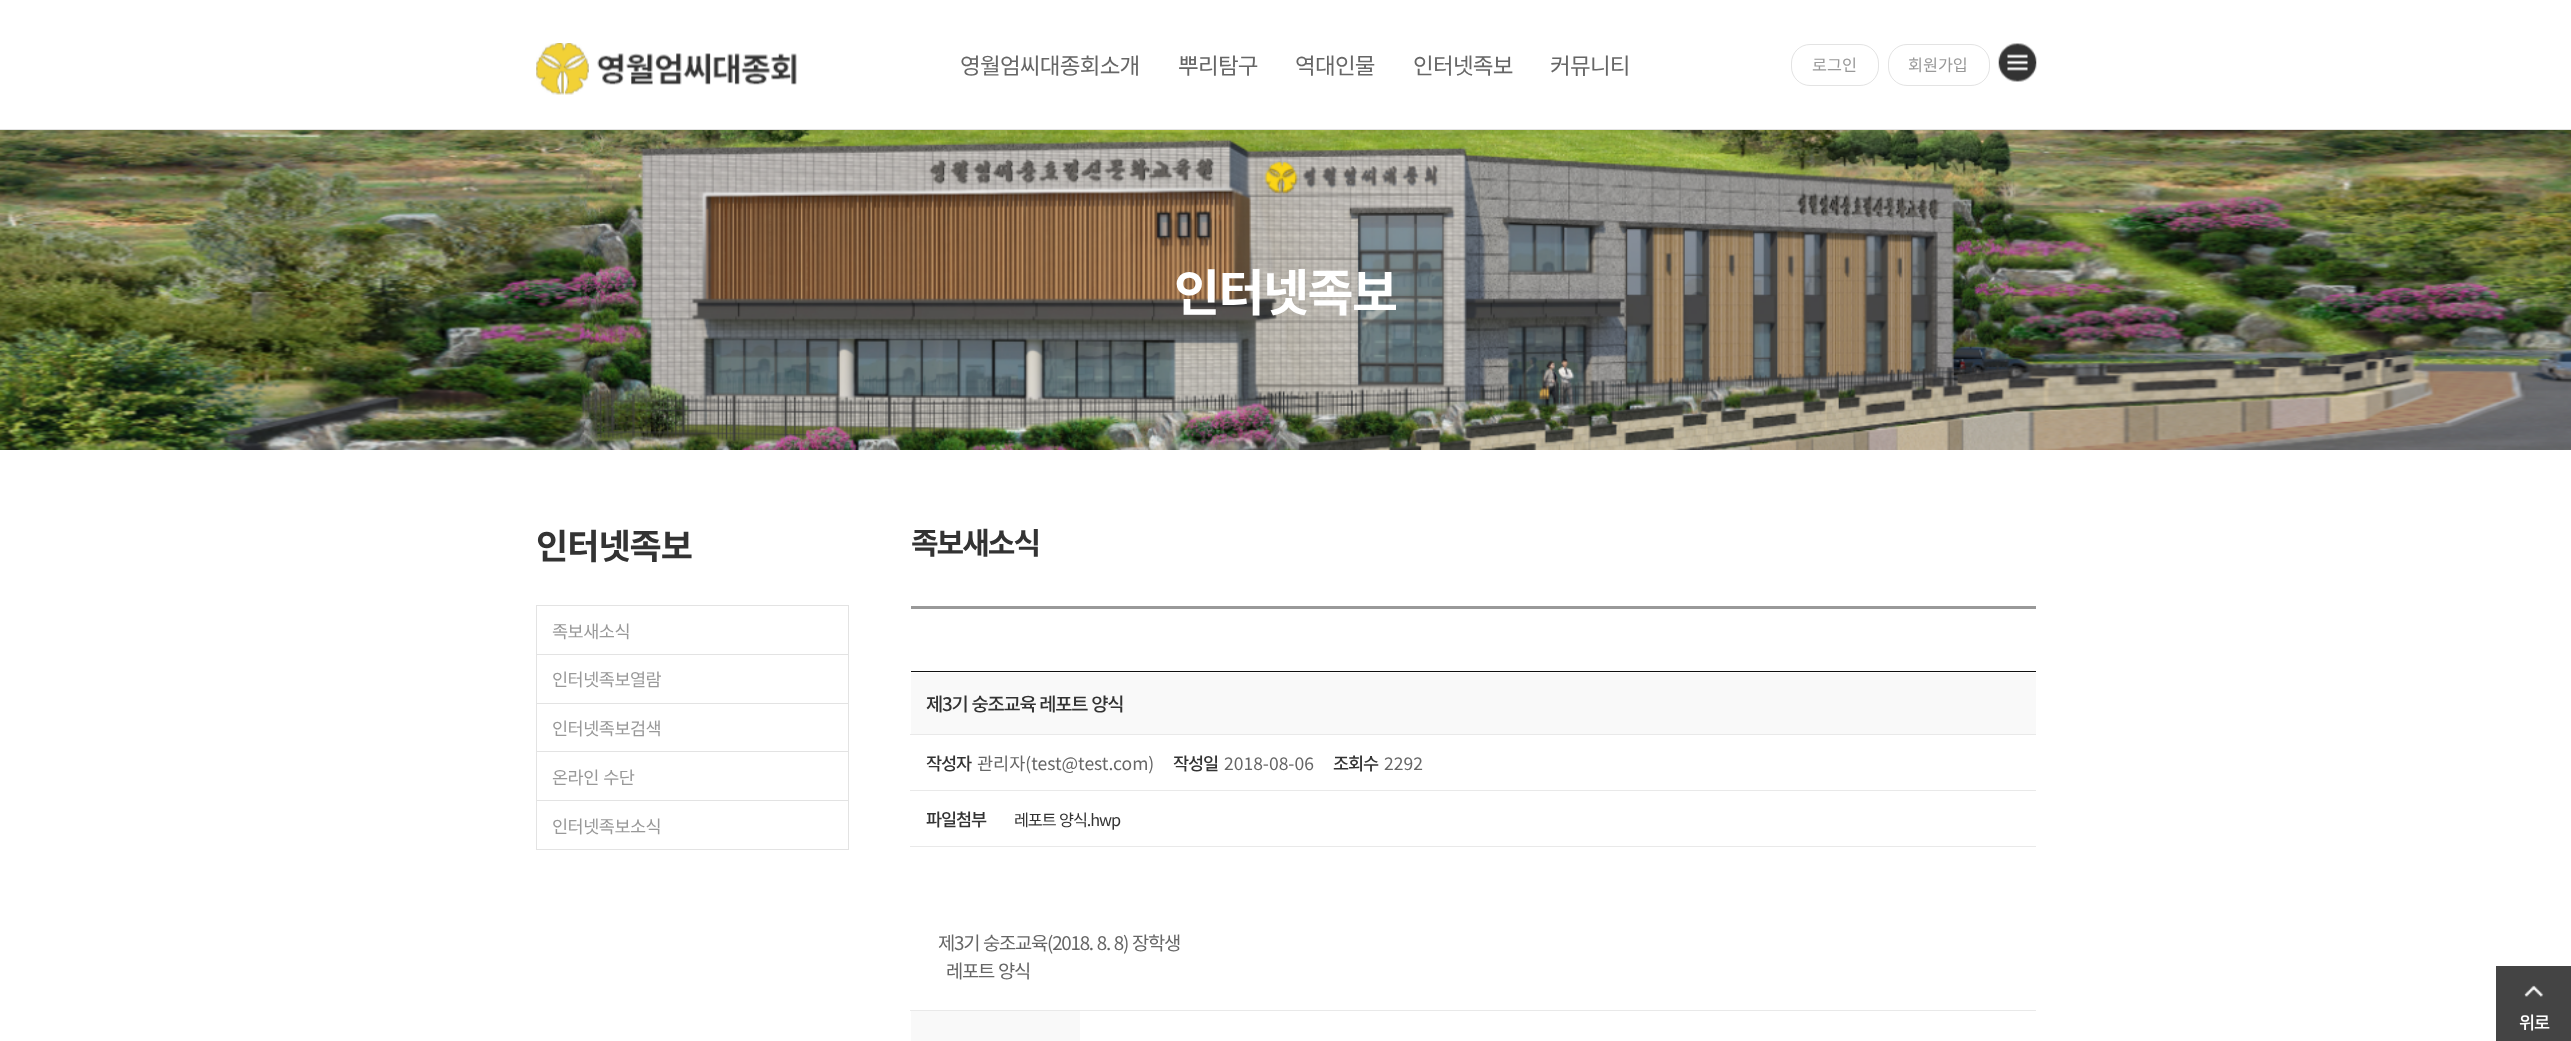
<!DOCTYPE html>
<meta charset="utf-8">
<style>body { margin: 0 } canvas { display: block }</style>
<canvas id="canvas" width="2571" height="1041"></canvas>
<script type="module">
  const canvas = document.getElementById("canvas");
  const ctx = canvas.getContext("2d");
  ctx.miterLimit = 4;
  ctx.fontKerning = "normal";
  async function loadImage(src) {
    const img = new Image();
    img.src = src;
    await img.decode();
    return img;
  }

  ctx.fillStyle = "#ffffff";
  ctx.fillRect(0, 0, 2571, 1041);
  ctx.fillStyle = "#e3e3e3";
  ctx.fillRect(0, 129, 2571, 1);
  ctx.drawImage(await loadImage("img1.png"), 536, 43, 261, 52);
  ctx.letterSpacing = "-0.75px";
  ctx.font = "22.5px Noto Sans KR";
  ctx.fillStyle = "#666666";
  ctx.fillText("영월엄씨대종회소개", 960, 74);
  ctx.fillText("뿌리탐구", 1178, 74);
  ctx.fillText("역대인물", 1295, 74);
  ctx.fillText("인터넷족보", 1413, 74);
  ctx.fillText("커뮤니티", 1550, 74);
  ctx.beginPath();
  ctx.roundRect(1791.5, 44.5, 87, 41, 18.5);
  ctx.strokeStyle = "#e3e3e3";
  ctx.stroke();
  ctx.letterSpacing = "0px";
  ctx.font = "16.25px Noto Sans KR";
  ctx.fillStyle = "#999999";
  ctx.fillText("로그인", 1812, 71);
  ctx.beginPath();
  ctx.roundRect(1888.5, 44.5, 101, 41, 18.5);
  ctx.stroke();
  ctx.fillText("회원가입", 1908, 71);
  ctx.drawImage(await loadImage("img2.png"), 1998, 43, 39, 39);
  ctx.drawImage(await loadImage("img3.png"), 0, 130, 2571, 320);
  ctx.letterSpacing = "-1.5px";
  ctx.font = "bold 50px Noto Sans KR";
  ctx.fillStyle = "#ffffff";
  ctx.fillText("인터넷족보", 1174, 311);
  ctx.letterSpacing = "-1px";
  ctx.font = "bold 35px Noto Sans KR";
  ctx.fillStyle = "#333333";
  ctx.fillText("인터넷족보", 536, 559);
  ctx.fillStyle = "#e3e3e3";
  ctx.fillRect(536, 605, 313, 1);
  ctx.fillRect(848, 605, 1, 49);
  ctx.fillRect(536, 605, 1, 49);
  ctx.letterSpacing = "-0.5px";
  ctx.font = "17.5px Noto Sans KR";
  ctx.fillStyle = "#999999";
  ctx.fillText("족보새소식", 552, 638);
  ctx.fillStyle = "#e3e3e3";
  ctx.fillRect(536, 654, 313, 1);
  ctx.fillRect(848, 654, 1, 49);
  ctx.fillRect(536, 654, 1, 49);
  ctx.fillStyle = "#999999";
  ctx.fillText("인터넷족보열람", 552, 686);
  ctx.fillStyle = "#e3e3e3";
  ctx.fillRect(536, 703, 313, 1);
  ctx.fillRect(848, 703, 1, 48);
  ctx.fillRect(536, 703, 1, 48);
  ctx.fillStyle = "#999999";
  ctx.fillText("인터넷족보검색", 552, 735);
  ctx.fillStyle = "#e3e3e3";
  ctx.fillRect(536, 751, 313, 1);
  ctx.fillRect(848, 751, 1, 49);
  ctx.fillRect(536, 751, 1, 49);
  ctx.wordSpacing = "1px";
  ctx.fillStyle = "#999999";
  ctx.fillText("온라인 수단", 552, 784);
  ctx.strokeRect(536.5, 800.5, 312, 49);
  ctx.wordSpacing = "0px";
  ctx.fillText("인터넷족보소식", 552, 833);
  ctx.fillRect(911, 606, 1125, 3);
  ctx.letterSpacing = "-2px";
  ctx.font = "bold 30px Noto Sans KR";
  ctx.fillStyle = "#333333";
  ctx.fillText("족보새소식", 911, 554);
  ctx.fillStyle = "#111111";
  ctx.fillRect(911, 671, 1125, 1);
  ctx.fillStyle = "#f9f9f9";
  ctx.fillRect(911, 673, 1125, 61);
  ctx.fillStyle = "#e9e9e9";
  ctx.fillRect(910, 734, 1126, 1);
  ctx.letterSpacing = "-1.25px";
  ctx.wordSpacing = "1px";
  ctx.font = "500 18.75px Noto Sans KR";
  ctx.fillStyle = "#333333";
  ctx.fillText("제3기 숭조교육 레포트 양식", 926, 711);
  ctx.letterSpacing = "-1.1px";
  ctx.wordSpacing = "0px";
  ctx.font = "500 17.5px Noto Sans KR";
  ctx.fillText("작성자", 926, 770);
  ctx.letterSpacing = "0px";
  ctx.font = "17.5px Noto Sans KR";
  ctx.fillStyle = "#666666";
  ctx.fillText("관리자(test@test.com)", 977, 770);
  ctx.letterSpacing = "-1.1px";
  ctx.font = "500 17.5px Noto Sans KR";
  ctx.fillStyle = "#333333";
  ctx.fillText("작성일", 1173, 770);
  ctx.letterSpacing = "0px";
  ctx.font = "17.5px Noto Sans KR";
  ctx.fillStyle = "#666666";
  ctx.fillText("2018-08-06", 1224, 770);
  ctx.letterSpacing = "-1.1px";
  ctx.font = "500 17.5px Noto Sans KR";
  ctx.fillStyle = "#333333";
  ctx.fillText("조회수", 1333, 770);
  ctx.letterSpacing = "0px";
  ctx.font = "17.5px Noto Sans KR";
  ctx.fillStyle = "#666666";
  ctx.fillText("2292", 1384, 770);
  ctx.fillStyle = "#e9e9e9";
  ctx.fillRect(910, 790, 1126, 1);
  ctx.fillRect(910, 846, 1126, 1);
  ctx.letterSpacing = "-1.1px";
  ctx.font = "500 17.5px Noto Sans KR";
  ctx.fillStyle = "#333333";
  ctx.fillText("파일첨부", 926, 826);
  ctx.wordSpacing = "1px";
  ctx.font = "16.25px Noto Sans KR";
  ctx.fillText("레포트 양식.hwp", 1014, 826);
  ctx.fillStyle = "#e9e9e9";
  ctx.fillRect(910, 1010, 1126, 1);
  ctx.letterSpacing = "-1.25px";
  ctx.font = "18.75px Noto Sans KR";
  ctx.fillStyle = "#666666";
  ctx.fillText("제3기 숭조교육(2018. 8. 8) 장학생", 938, 950);
  ctx.fillText("레포트 양식", 946, 978);
  ctx.fillStyle = "#f9f9f9";
  ctx.fillRect(911, 1011, 169, 30);
  ctx.fillStyle = "#444444";
  ctx.fillRect(2496, 966, 75, 75);
  ctx.drawImage(await loadImage("img4.png"), 2524, 985, 20, 12);
  ctx.letterSpacing = "-1.1px";
  ctx.wordSpacing = "0px";
  ctx.font = "500 17.5px Noto Sans KR";
  ctx.fillStyle = "#ffffff";
  ctx.fillText("위로", 2519, 1029);
</script>
